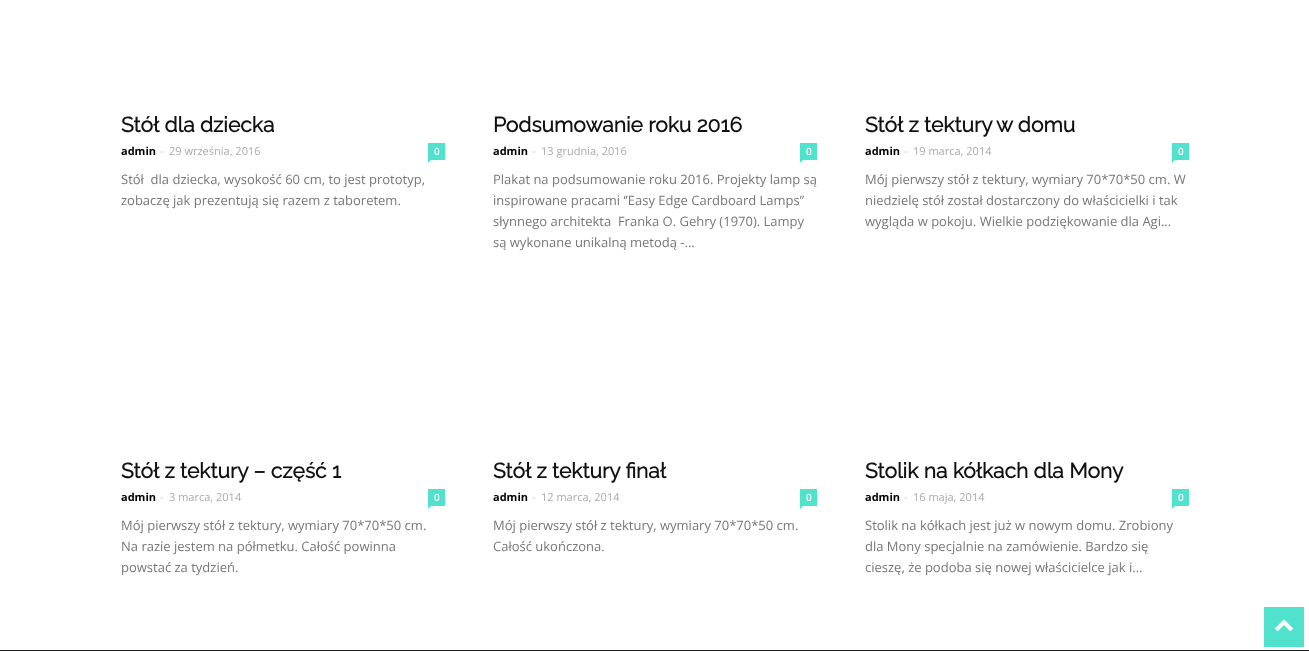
<!DOCTYPE html>
<meta charset="utf-8">
<style>body { margin: 0 } canvas { display: block }</style>
<canvas id="canvas" width="1309" height="651"></canvas>
<script type="module">
  const canvas = document.getElementById("canvas");
  const ctx = canvas.getContext("2d");
  ctx.miterLimit = 4;
  ctx.fontKerning = "normal";
  async function loadImage(src) {
    const img = new Image();
    img.src = src;
    await img.decode();
    return img;
  }

  ctx.fillStyle = "#ffffff";
  ctx.fillRect(0, 0, 1309, 651);
  ctx.font = "bold 21px Raleway";
  ctx.fillStyle = "#111111";
  ctx.fillText("Stół dla dziecka", 121, 132);
  ctx.font = "bold 11px Open Sans";
  ctx.fillStyle = "#000000";
  ctx.fillText("admin", 121, 155);
  ctx.font = "11px Open Sans";
  ctx.fillStyle = "#cccccc";
  ctx.fillText("-", 160, 155);
  ctx.fillStyle = "#aaaaaa";
  ctx.fillText("29 września, 2016", 169, 155);
  ctx.fillStyle = "#51e2cd";
  ctx.fillRect(428, 143, 17, 17);
  ctx.font = "600 10px Open Sans";
  ctx.fillStyle = "#ffffff";
  ctx.fillText("0", 434, 155);
  ctx.fillStyle = "#51e2cd";
  ctx.beginPath();
  ctx.moveTo(428, 160);
  ctx.lineTo(431, 160);
  ctx.lineTo(428, 163);
  ctx.closePath();
  ctx.fill();
  ctx.font = "13px Open Sans";
  ctx.fillStyle = "#777777";
  ctx.fillText("Stół  dla dziecka, wysokość 60 cm, to jest prototyp,", 121, 184);
  ctx.fillText("zobaczę jak prezentują się razem z taboretem.", 121, 205);
  ctx.font = "bold 21px Raleway";
  ctx.fillStyle = "#111111";
  ctx.fillText("Podsumowanie roku 2016", 493, 132);
  ctx.font = "bold 11px Open Sans";
  ctx.fillStyle = "#000000";
  ctx.fillText("admin", 493, 155);
  ctx.font = "11px Open Sans";
  ctx.fillStyle = "#cccccc";
  ctx.fillText("-", 532, 155);
  ctx.fillStyle = "#aaaaaa";
  ctx.fillText("13 grudnia, 2016", 541, 155);
  ctx.fillStyle = "#51e2cd";
  ctx.fillRect(800, 143, 17, 17);
  ctx.font = "600 10px Open Sans";
  ctx.fillStyle = "#ffffff";
  ctx.fillText("0", 806, 155);
  ctx.fillStyle = "#51e2cd";
  ctx.beginPath();
  ctx.moveTo(800, 160);
  ctx.lineTo(803, 160);
  ctx.lineTo(800, 163);
  ctx.closePath();
  ctx.fill();
  ctx.font = "13px Open Sans";
  ctx.fillStyle = "#777777";
  ctx.fillText("Plakat na podsumowanie roku 2016. Projekty lamp są", 493, 184);
  ctx.fillText("inspirowane pracami ‘’Easy Edge Cardboard Lamps’’", 493, 205);
  ctx.fillText("słynnego architekta  Franka O. Gehry (1970). Lampy", 493, 226);
  ctx.fillText("są wykonane unikalną metodą -...", 493, 247);
  ctx.font = "bold 21px Raleway";
  ctx.fillStyle = "#111111";
  ctx.fillText("Stół z tektury", 865, 132);
  ctx.fillText("w domu", 996, 132);
  ctx.font = "bold 11px Open Sans";
  ctx.fillStyle = "#000000";
  ctx.fillText("admin", 865, 155);
  ctx.font = "11px Open Sans";
  ctx.fillStyle = "#cccccc";
  ctx.fillText("-", 904, 155);
  ctx.fillStyle = "#aaaaaa";
  ctx.fillText("19 marca, 2014", 913, 155);
  ctx.fillStyle = "#51e2cd";
  ctx.fillRect(1172, 143, 17, 17);
  ctx.font = "600 10px Open Sans";
  ctx.fillStyle = "#ffffff";
  ctx.fillText("0", 1178, 155);
  ctx.fillStyle = "#51e2cd";
  ctx.beginPath();
  ctx.moveTo(1172, 160);
  ctx.lineTo(1175, 160);
  ctx.lineTo(1172, 163);
  ctx.closePath();
  ctx.fill();
  ctx.font = "13px Open Sans";
  ctx.fillStyle = "#777777";
  ctx.fillText("Mój pierwszy stół z tektury, wymiary 70*70*50 cm. W", 865, 184);
  ctx.fillText("niedzielę stół został dostarczony do właścicielki i tak", 865, 205);
  ctx.fillText("wygląda w pokoju. Wielkie podziękowanie dla Agi...", 865, 226);
  ctx.font = "bold 21px Raleway";
  ctx.fillStyle = "#111111";
  ctx.fillText("Stół z tektury – część 1", 121, 478);
  ctx.font = "bold 11px Open Sans";
  ctx.fillStyle = "#000000";
  ctx.fillText("admin", 121, 501);
  ctx.font = "11px Open Sans";
  ctx.fillStyle = "#cccccc";
  ctx.fillText("-", 160, 501);
  ctx.fillStyle = "#aaaaaa";
  ctx.fillText("3 marca, 2014", 169, 501);
  ctx.fillStyle = "#51e2cd";
  ctx.fillRect(428, 489, 17, 17);
  ctx.font = "600 10px Open Sans";
  ctx.fillStyle = "#ffffff";
  ctx.fillText("0", 434, 501);
  ctx.fillStyle = "#51e2cd";
  ctx.beginPath();
  ctx.moveTo(428, 506);
  ctx.lineTo(431, 506);
  ctx.lineTo(428, 509);
  ctx.closePath();
  ctx.fill();
  ctx.font = "13px Open Sans";
  ctx.fillStyle = "#777777";
  ctx.fillText("Mój pierwszy stół z tektury, wymiary 70*70*50 cm.", 121, 530);
  ctx.fillText("Na razie jestem na półmetku. Całość powinna", 121, 551);
  ctx.fillText("powstać za tydzień.", 121, 572);
  ctx.font = "bold 21px Raleway";
  ctx.fillStyle = "#111111";
  ctx.fillText("Stół z tektury finał", 493, 478);
  ctx.font = "bold 11px Open Sans";
  ctx.fillStyle = "#000000";
  ctx.fillText("admin", 493, 501);
  ctx.font = "11px Open Sans";
  ctx.fillStyle = "#cccccc";
  ctx.fillText("-", 532, 501);
  ctx.fillStyle = "#aaaaaa";
  ctx.fillText("12 marca, 2014", 541, 501);
  ctx.fillStyle = "#51e2cd";
  ctx.fillRect(800, 489, 17, 17);
  ctx.font = "600 10px Open Sans";
  ctx.fillStyle = "#ffffff";
  ctx.fillText("0", 806, 501);
  ctx.fillStyle = "#51e2cd";
  ctx.beginPath();
  ctx.moveTo(800, 506);
  ctx.lineTo(803, 506);
  ctx.lineTo(800, 509);
  ctx.closePath();
  ctx.fill();
  ctx.font = "13px Open Sans";
  ctx.fillStyle = "#777777";
  ctx.fillText("Mój pierwszy stół z tektury, wymiary 70*70*50 cm.", 493, 530);
  ctx.fillText("Całość ukończona.", 493, 551);
  ctx.font = "bold 21px Raleway";
  ctx.fillStyle = "#111111";
  ctx.fillText("Stolik na kółkach dla Mony", 865, 478);
  ctx.font = "bold 11px Open Sans";
  ctx.fillStyle = "#000000";
  ctx.fillText("admin", 865, 501);
  ctx.font = "11px Open Sans";
  ctx.fillStyle = "#cccccc";
  ctx.fillText("-", 904, 501);
  ctx.fillStyle = "#aaaaaa";
  ctx.fillText("16 maja, 2014", 913, 501);
  ctx.fillStyle = "#51e2cd";
  ctx.fillRect(1172, 489, 17, 17);
  ctx.font = "600 10px Open Sans";
  ctx.fillStyle = "#ffffff";
  ctx.fillText("0", 1178, 501);
  ctx.fillStyle = "#51e2cd";
  ctx.beginPath();
  ctx.moveTo(1172, 506);
  ctx.lineTo(1175, 506);
  ctx.lineTo(1172, 509);
  ctx.closePath();
  ctx.fill();
  ctx.font = "13px Open Sans";
  ctx.fillStyle = "#777777";
  ctx.fillText("Stolik na kółkach jest już w nowym domu. Zrobiony", 865, 530);
  ctx.fillText("dla Mony specjalnie na zamówienie. Bardzo się", 865, 551);
  ctx.fillText("cieszę, że podoba się nowej właścicielce jak i...", 865, 572);
  ctx.fillStyle = "#222222";
  ctx.fillRect(0, 650, 1309, 1);
  ctx.fillStyle = "#51e2cd";
  ctx.fillRect(1264, 607, 40, 40);
  ctx.drawImage(await loadImage("img1.png"), 1275, 619, 18, 13);
</script>
